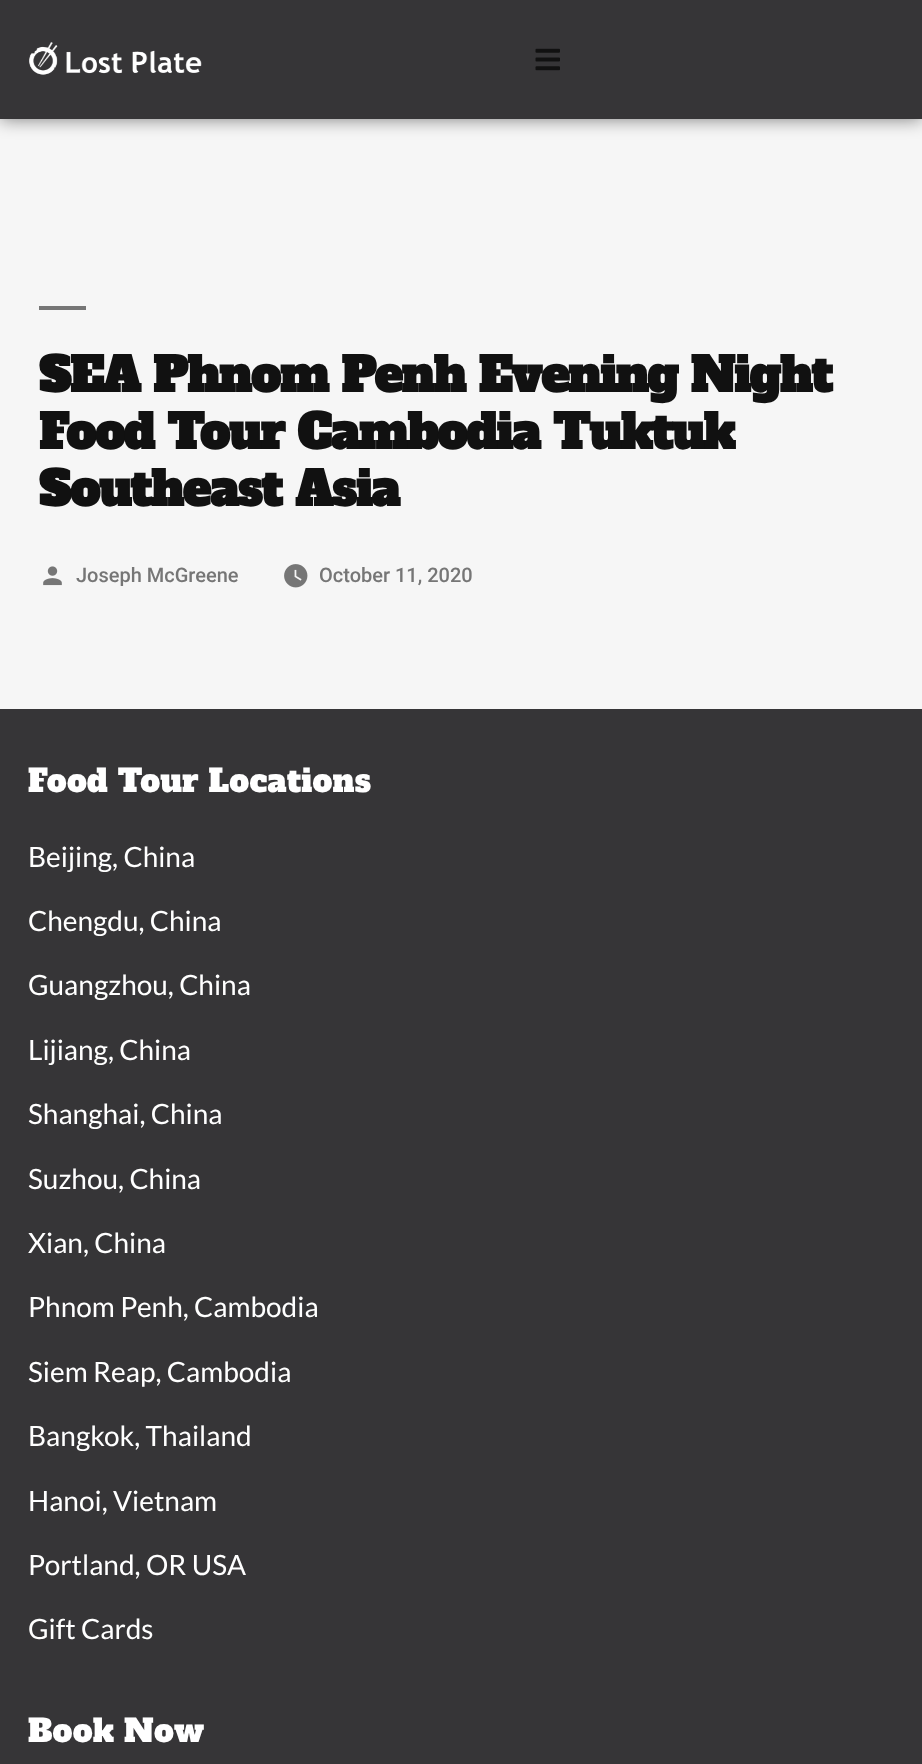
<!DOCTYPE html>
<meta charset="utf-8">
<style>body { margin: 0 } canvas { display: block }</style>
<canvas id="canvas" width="922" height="1764"></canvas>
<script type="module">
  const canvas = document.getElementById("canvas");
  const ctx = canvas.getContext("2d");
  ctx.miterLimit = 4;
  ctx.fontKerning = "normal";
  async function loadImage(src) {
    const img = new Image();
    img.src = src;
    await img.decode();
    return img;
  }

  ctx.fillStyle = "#f6f6f6";
  ctx.fillRect(0, 0, 922, 1764);
  ctx.fillStyle = "rgba(0, 0, 0, 0.5)";
  ctx.filter = "blur(9px)";
  ctx.beginPath();
  ctx.rect(0, 0, 922, 119);
  ctx.fill();
  ctx.filter = "none";
  ctx.fillStyle = "#363537";
  ctx.fillRect(0, 0, 922, 119);
  ctx.drawImage(await loadImage("img1.png"), 29, 42, 173, 33);
  ctx.drawImage(await loadImage("img2.png"), 535, 48, 25, 23);
  ctx.fillStyle = "#767676";
  ctx.fillRect(39, 306, 47, 4);
  ctx.letterSpacing = "-0.95px";
  ctx.font = "bold 47.25px Alfa Slab One";
  ctx.fillStyle = "#111111";
  ctx.fillText("SEA Phnom Penh Evening Night", 39, 392);
  ctx.fillText("Food Tour Cambodia Tuktuk", 39, 449);
  ctx.fillText("Southeast Asia", 39, 506);
  ctx.drawImage(await loadImage("img3.png"), 43, 566, 19, 20);
  ctx.letterSpacing = "0px";
  ctx.font = "500 20px Roboto";
  ctx.fillStyle = "#767676";
  ctx.fillText("Joseph McGreene", 76, 582);
  ctx.drawImage(await loadImage("img4.png"), 284, 564, 24, 24);
  ctx.fillText("October 11, 2020", 319, 582);
  ctx.fillStyle = "#363537";
  ctx.fillRect(0, 709, 922, 1055);
  ctx.letterSpacing = "0.2px";
  ctx.font = "31.5px Alfa Slab One";
  ctx.fillStyle = "#ffffff";
  ctx.fillText("Food Tour Locations", 28, 792);
  ctx.letterSpacing = "0px";
  ctx.font = "28px Lato";
  ctx.fillText("Beijing, China", 28, 867);
  ctx.fillText("Chengdu, China", 28, 931);
  ctx.fillText("Guangzhou, China", 28, 995);
  ctx.fillText("Lijiang, China", 28, 1060);
  ctx.fillText("Shanghai, China", 28, 1124);
  ctx.fillText("Suzhou, China", 28, 1189);
  ctx.fillText("Xian, China", 28, 1253);
  ctx.fillText("Phnom Penh, Cambodia", 28, 1317);
  ctx.fillText("Siem Reap, Cambodia", 28, 1382);
  ctx.fillText("Bangkok, Thailand", 28, 1446);
  ctx.fillText("Hanoi, Vietnam", 28, 1511);
  ctx.fillText("Portland, OR USA", 28, 1575);
  ctx.fillText("Gift Cards", 28, 1639);
  ctx.letterSpacing = "0.2px";
  ctx.font = "31.5px Alfa Slab One";
  ctx.fillText("Book Now", 28, 1742);
</script>
